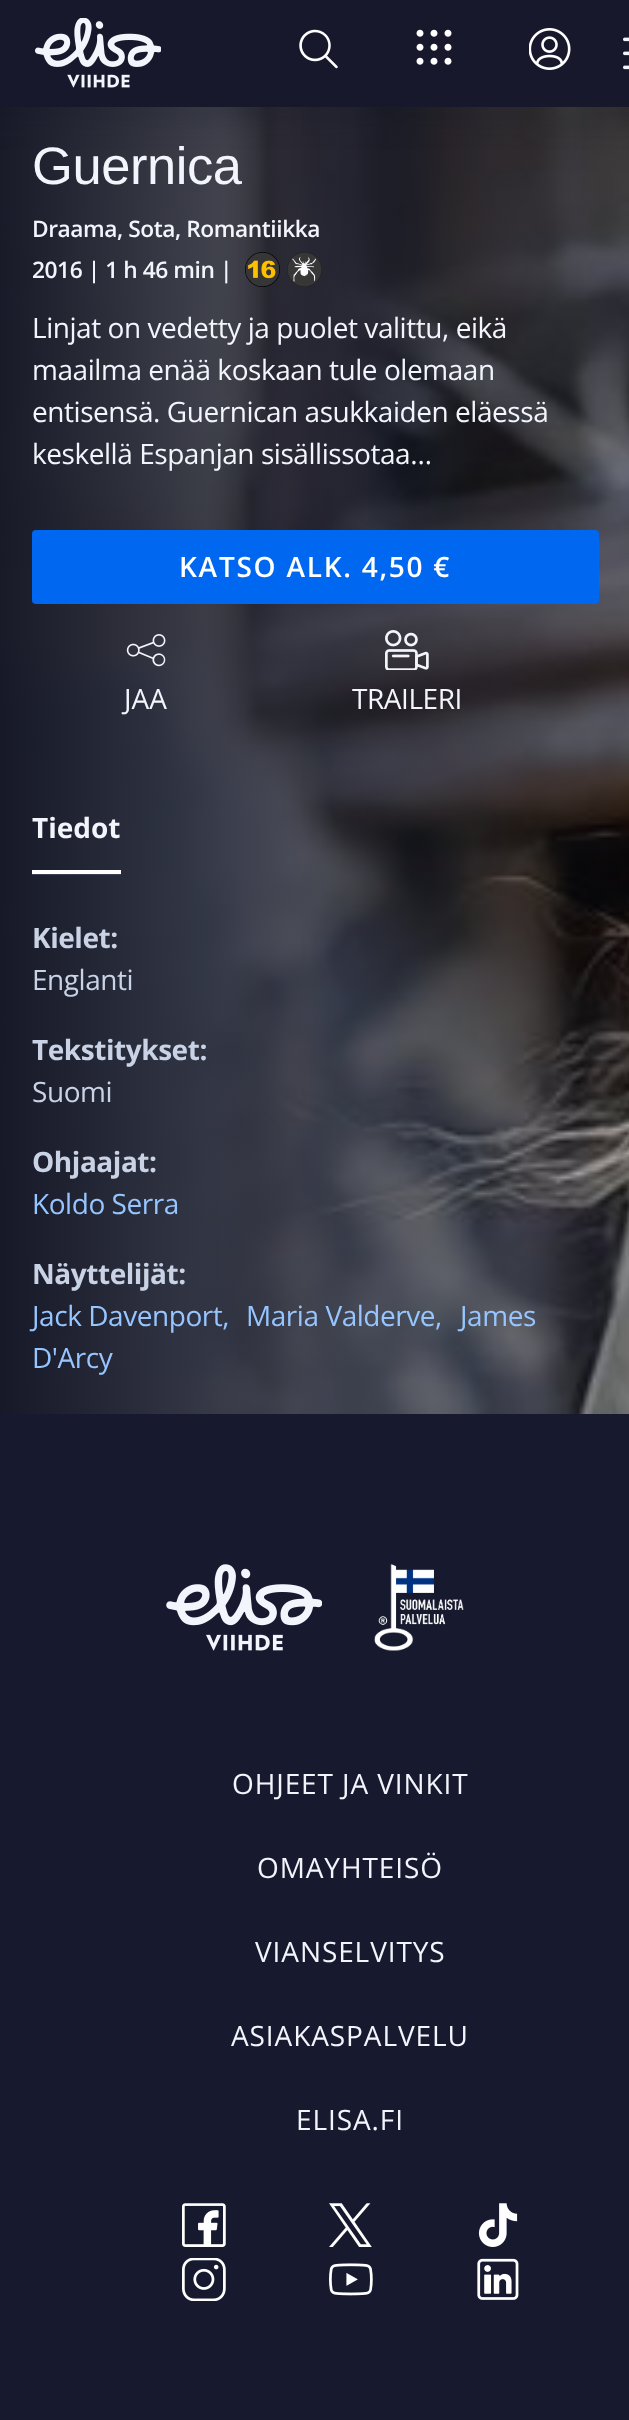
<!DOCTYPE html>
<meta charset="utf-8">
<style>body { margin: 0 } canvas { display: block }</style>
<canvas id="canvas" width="629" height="2420"></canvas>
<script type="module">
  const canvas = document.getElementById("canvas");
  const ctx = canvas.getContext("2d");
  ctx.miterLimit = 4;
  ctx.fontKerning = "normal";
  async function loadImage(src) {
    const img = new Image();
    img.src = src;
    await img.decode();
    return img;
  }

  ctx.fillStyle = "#ffffff";
  ctx.fillRect(0, 0, 629, 2420);
  ctx.drawImage(await loadImage("img6.png"), 0, 107, 629, 1307);
  ctx.fillStyle = "rgba(16, 18, 33, 0.15)";
  ctx.filter = "blur(13px)";
  ctx.beginPath();
  ctx.rect(-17, -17, 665, 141);
  ctx.fill();
  ctx.filter = "none";
  ctx.fillStyle = "#17182c";
  ctx.fillRect(0, 0, 629, 107);
  ctx.drawImage(await loadImage("img1.png"), 35, 18, 126, 70);
  ctx.drawImage(await loadImage("img2.png"), 299, 29, 39, 40);
  ctx.drawImage(await loadImage("img3.png"), 416, 29, 36, 36);
  ctx.drawImage(await loadImage("img4.png"), 529, 28, 42, 42);
  ctx.drawImage(await loadImage("img5.png"), 623, 37, 6, 33);
  ctx.letterSpacing = "-0.45px";
  ctx.font = "52.5px Liberation Sans";
  ctx.fillStyle = "#f2f5fb";
  ctx.fillText("Guernica", 32, 184);
  ctx.font = "600 22.75px Open Sans";
  ctx.fillText("Draama, Sota, Romantiikka", 32, 237);
  ctx.fillText("2016 | 1 h 46 min |", 32, 278);
  ctx.drawImage(await loadImage("img7.png"), 245, 252, 35, 35);
  ctx.drawImage(await loadImage("img8.png"), 287, 252, 35, 35);
  ctx.font = "28px Open Sans";
  ctx.fillText("Linjat on vedetty ja puolet valittu, eikä", 32, 338);
  ctx.fillText("maailma enää koskaan tule olemaan", 32, 380);
  ctx.fillText("entisensä. Guernican asukkaiden eläessä", 32, 422);
  ctx.fillText("keskellä Espanjan sisällissotaa…", 32, 464);
  ctx.fillStyle = "#0068f0";
  ctx.beginPath();
  ctx.roundRect(32, 530, 567, 74, 4);
  ctx.fill();
  ctx.letterSpacing = "1.75px";
  ctx.font = "600 28px Open Sans";
  ctx.fillStyle = "#ffffff";
  ctx.fillText("KATSO ALK. 4,50 €", 179, 577);
  ctx.drawImage(await loadImage("img9.png"), 126, 634, 40, 33);
  ctx.letterSpacing = "0px";
  ctx.font = "28px Open Sans";
  ctx.fillStyle = "#f2f5fb";
  ctx.fillText("JAA", 124, 709);
  ctx.drawImage(await loadImage("img10.png"), 385, 630, 44, 40);
  ctx.letterSpacing = "-0.45px";
  ctx.fillText("TRAILERI", 352, 709);
  ctx.fillStyle = "#384056";
  ctx.fillRect(32, 874, 89, 1);
  ctx.fillStyle = "#ffffff";
  ctx.fillRect(32, 870, 89, 4);
  ctx.letterSpacing = "0px";
  ctx.font = "bold 28px Open Sans";
  ctx.fillStyle = "#f2f5fb";
  ctx.fillText("Tiedot", 32, 838);
  ctx.letterSpacing = "-0.45px";
  ctx.fillStyle = "#c9d3e5";
  ctx.fillText("Kielet:", 32, 948);
  ctx.font = "28px Open Sans";
  ctx.fillText("Englanti", 32, 990);
  ctx.font = "bold 28px Open Sans";
  ctx.fillText("Tekstitykset:", 32, 1060);
  ctx.font = "28px Open Sans";
  ctx.fillText("Suomi", 32, 1102);
  ctx.font = "bold 28px Open Sans";
  ctx.fillText("Ohjaajat:", 32, 1172);
  ctx.font = "28px Open Sans";
  ctx.fillStyle = "#96c5ff";
  ctx.fillText("Koldo Serra", 32, 1214);
  ctx.font = "bold 28px Open Sans";
  ctx.fillStyle = "#c9d3e5";
  ctx.fillText("Näyttelijät:", 32, 1284);
  ctx.font = "28px Open Sans";
  ctx.fillStyle = "#96c5ff";
  ctx.fillText("Jack Davenport,", 32, 1326);
  ctx.fillText("Maria Valderve,", 246, 1326);
  ctx.fillText("James", 460, 1326);
  ctx.fillText("D'Arcy", 32, 1368);
  ctx.fillStyle = "#171a2f";
  ctx.fillRect(0, 1414, 629, 1006);
  ctx.drawImage(await loadImage("img11.png"), 166, 1564, 156, 87);
  ctx.drawImage(await loadImage("img12.png"), 374, 1564, 90, 87);
  ctx.letterSpacing = "0.9px";
  ctx.fillStyle = "#f2f5fb";
  ctx.fillText("OHJEET JA VINKIT", 232, 1794);
  ctx.fillText("OMAYHTEISÖ", 257, 1878);
  ctx.fillText("VIANSELVITYS", 255, 1962);
  ctx.fillText("ASIAKASPALVELU", 231, 2046);
  ctx.fillText("ELISA.FI", 296, 2130);
  ctx.drawImage(await loadImage("img13.png"), 182, 2203, 44, 44);
  ctx.drawImage(await loadImage("img14.png"), 329, 2203, 43, 44);
  ctx.drawImage(await loadImage("img15.png"), 478, 2203, 40, 44);
  ctx.drawImage(await loadImage("img16.png"), 182, 2258, 44, 43);
  ctx.drawImage(await loadImage("img17.png"), 329, 2263, 44, 33);
  ctx.drawImage(await loadImage("img18.png"), 477, 2258, 42, 42);
</script>
